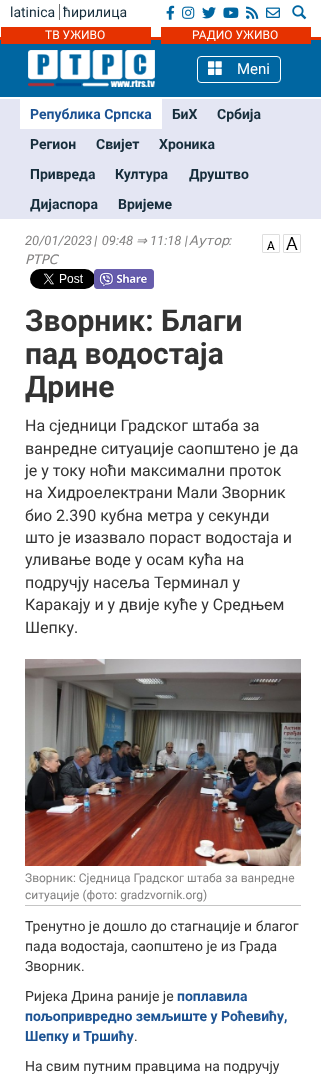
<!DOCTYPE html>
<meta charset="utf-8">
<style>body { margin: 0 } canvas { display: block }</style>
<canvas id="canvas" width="321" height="1084"></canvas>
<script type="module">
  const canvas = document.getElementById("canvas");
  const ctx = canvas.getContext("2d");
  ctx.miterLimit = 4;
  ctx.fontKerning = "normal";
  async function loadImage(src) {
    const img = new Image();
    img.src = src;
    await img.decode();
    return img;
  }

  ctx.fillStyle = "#ffffff";
  ctx.fillRect(0, 0, 321, 1084);
  ctx.fillStyle = "#0066a1";
  ctx.fillRect(0, 40, 321, 57);
  ctx.font = "14px Roboto";
  ctx.fillStyle = "#162d3b";
  ctx.fillText("latinica", 10, 17);
  ctx.fillStyle = "#727272";
  ctx.fillRect(59, 4, 1, 16);
  ctx.fillStyle = "#162d3b";
  ctx.fillText("ћирилица", 63, 17);
  ctx.drawImage(await loadImage("img1.png"), 166, 5, 9, 15);
  ctx.drawImage(await loadImage("img2.png"), 182, 6, 13, 13);
  ctx.drawImage(await loadImage("img3.png"), 202, 7, 14, 12);
  ctx.drawImage(await loadImage("img4.png"), 223, 7, 16, 11);
  ctx.drawImage(await loadImage("img5.png"), 246, 6, 13, 13);
  ctx.drawImage(await loadImage("img6.png"), 266, 7, 14, 11);
  ctx.drawImage(await loadImage("img7.png"), 292, 5, 15, 15);
  ctx.fillStyle = "#e63200";
  ctx.fillRect(0, 37, 321, 3);
  ctx.fillRect(1, 27, 150, 17);
  ctx.font = "12px Roboto";
  ctx.fillStyle = "#ffffff";
  ctx.fillText("ТВ УЖИВО", 45, 39);
  ctx.fillStyle = "#e63200";
  ctx.fillRect(161, 27, 150, 17);
  ctx.fillStyle = "#ffffff";
  ctx.fillText("РАДИО УЖИВО", 192, 39);
  ctx.drawImage(await loadImage("img8.png"), 28, 50, 127, 37);
  ctx.beginPath();
  ctx.roundRect(197.5, 56.5, 83, 26, 3.5);
  ctx.strokeStyle = "#ffffff";
  ctx.stroke();
  ctx.drawImage(await loadImage("img9.png"), 208, 61, 14, 14);
  ctx.font = "15px Roboto";
  ctx.fillText("Meni", 237, 74);
  ctx.fillStyle = "#e4e6f3";
  ctx.fillRect(0, 99, 321, 120);
  ctx.fillStyle = "#ffffff";
  ctx.fillRect(20, 99, 142, 30);
  ctx.font = "bold 14px Roboto";
  ctx.fillStyle = "#1d5393";
  ctx.fillText("Република Српска", 30, 119);
  ctx.fillStyle = "#162d3b";
  ctx.fillText("БиХ", 172, 119);
  ctx.fillText("Србија", 217, 119);
  ctx.fillText("Регион", 30, 149);
  ctx.fillText("Свијет", 96, 149);
  ctx.fillText("Хроника", 159, 149);
  ctx.fillText("Привреда", 30, 179);
  ctx.fillText("Култура", 115, 179);
  ctx.fillText("Друштво", 189, 179);
  ctx.fillText("Дијаспора", 30, 209);
  ctx.fillText("Вријеме", 118, 209);
  ctx.wordSpacing = "-1px";
  ctx.font = "italic 13px Roboto";
  ctx.fillStyle = "#818080";
  ctx.fillText("20/01/2023 |  09:48", 25, 245);
  ctx.wordSpacing = "0px";
  ctx.font = "italic 13px DejaVu Sans";
  ctx.fillText("⇒", 136, 245);
  ctx.font = "italic 13px Roboto";
  ctx.fillText("11:18 |", 150, 245);
  ctx.font = "italic 13px DejaVu Sans";
  ctx.fillText("Аутор", 189, 245);
  ctx.font = "italic 13px Roboto";
  ctx.fillText(":", 229, 245);
  ctx.font = "italic 13px DejaVu Sans";
  ctx.fillText("РТРС", 25, 264);
  ctx.drawImage(await loadImage("img10.png"), 262, 234, 18, 19);
  ctx.drawImage(await loadImage("img11.png"), 283, 234, 18, 19);
  ctx.drawImage(await loadImage("img12.png"), 30, 269, 64, 20);
  ctx.drawImage(await loadImage("img13.png"), 94, 269, 60, 20);
  ctx.font = "bold 30px Roboto";
  ctx.fillStyle = "#333333";
  ctx.fillText("Зворник: Благи", 25, 331);
  ctx.fillText("пад водостаја", 25, 364);
  ctx.fillText("Дрине", 25, 397);
  ctx.font = "16px Roboto";
  ctx.fillText("На сједници Градског штаба за", 25, 431);
  ctx.fillText("ванредне ситуације саопштено је да", 25, 454);
  ctx.fillText("је у току ноћи максимални проток", 25, 476);
  ctx.fillText("на Хидроелектрани Мали Зворник", 25, 498);
  ctx.fillText("био 2.390 кубна метра у секунди", 25, 521);
  ctx.fillText("што је изазвало пораст водостаја и", 25, 543);
  ctx.fillText("уливање воде у осам кућа на", 25, 565);
  ctx.fillText("подручју насеља Терминал у", 25, 588);
  ctx.fillText("Каракају и у двије куће у Средњем", 25, 610);
  ctx.fillText("Шепку.", 25, 633);
  ctx.drawImage(await loadImage("img14.png"), 25, 659, 276, 207);
  ctx.fillStyle = "#c5c5c5";
  ctx.fillRect(25, 905, 276, 1);
  ctx.font = "12px Roboto";
  ctx.fillStyle = "#818080";
  ctx.fillText("Зворник: Сједница Градског штаба за ванредне", 25, 882);
  ctx.fillText("ситуације (фото: gradzvornik.org)", 25, 899);
  ctx.font = "14px Roboto";
  ctx.fillStyle = "#333333";
  ctx.fillText("Тренутно је дошло до стагнације и благог", 25, 931);
  ctx.fillText("пада водостаја, саопштено је из Града", 25, 951);
  ctx.fillText("Зворник.", 25, 971);
  ctx.fillText("Ријека Дрина раније је", 25, 1001);
  ctx.font = "bold 14px Roboto";
  ctx.fillStyle = "#1d5393";
  ctx.fillText("поплавила", 177, 1001);
  ctx.fillText("пољопривредно земљиште у Роћевићу,", 25, 1021);
  ctx.fillText("Шепку и Тршићу", 25, 1041);
  ctx.font = "14px Roboto";
  ctx.fillStyle = "#333333";
  ctx.fillText(".", 134, 1041);
  ctx.fillText("На свим путним правцима на подручју", 25, 1071);
</script>
